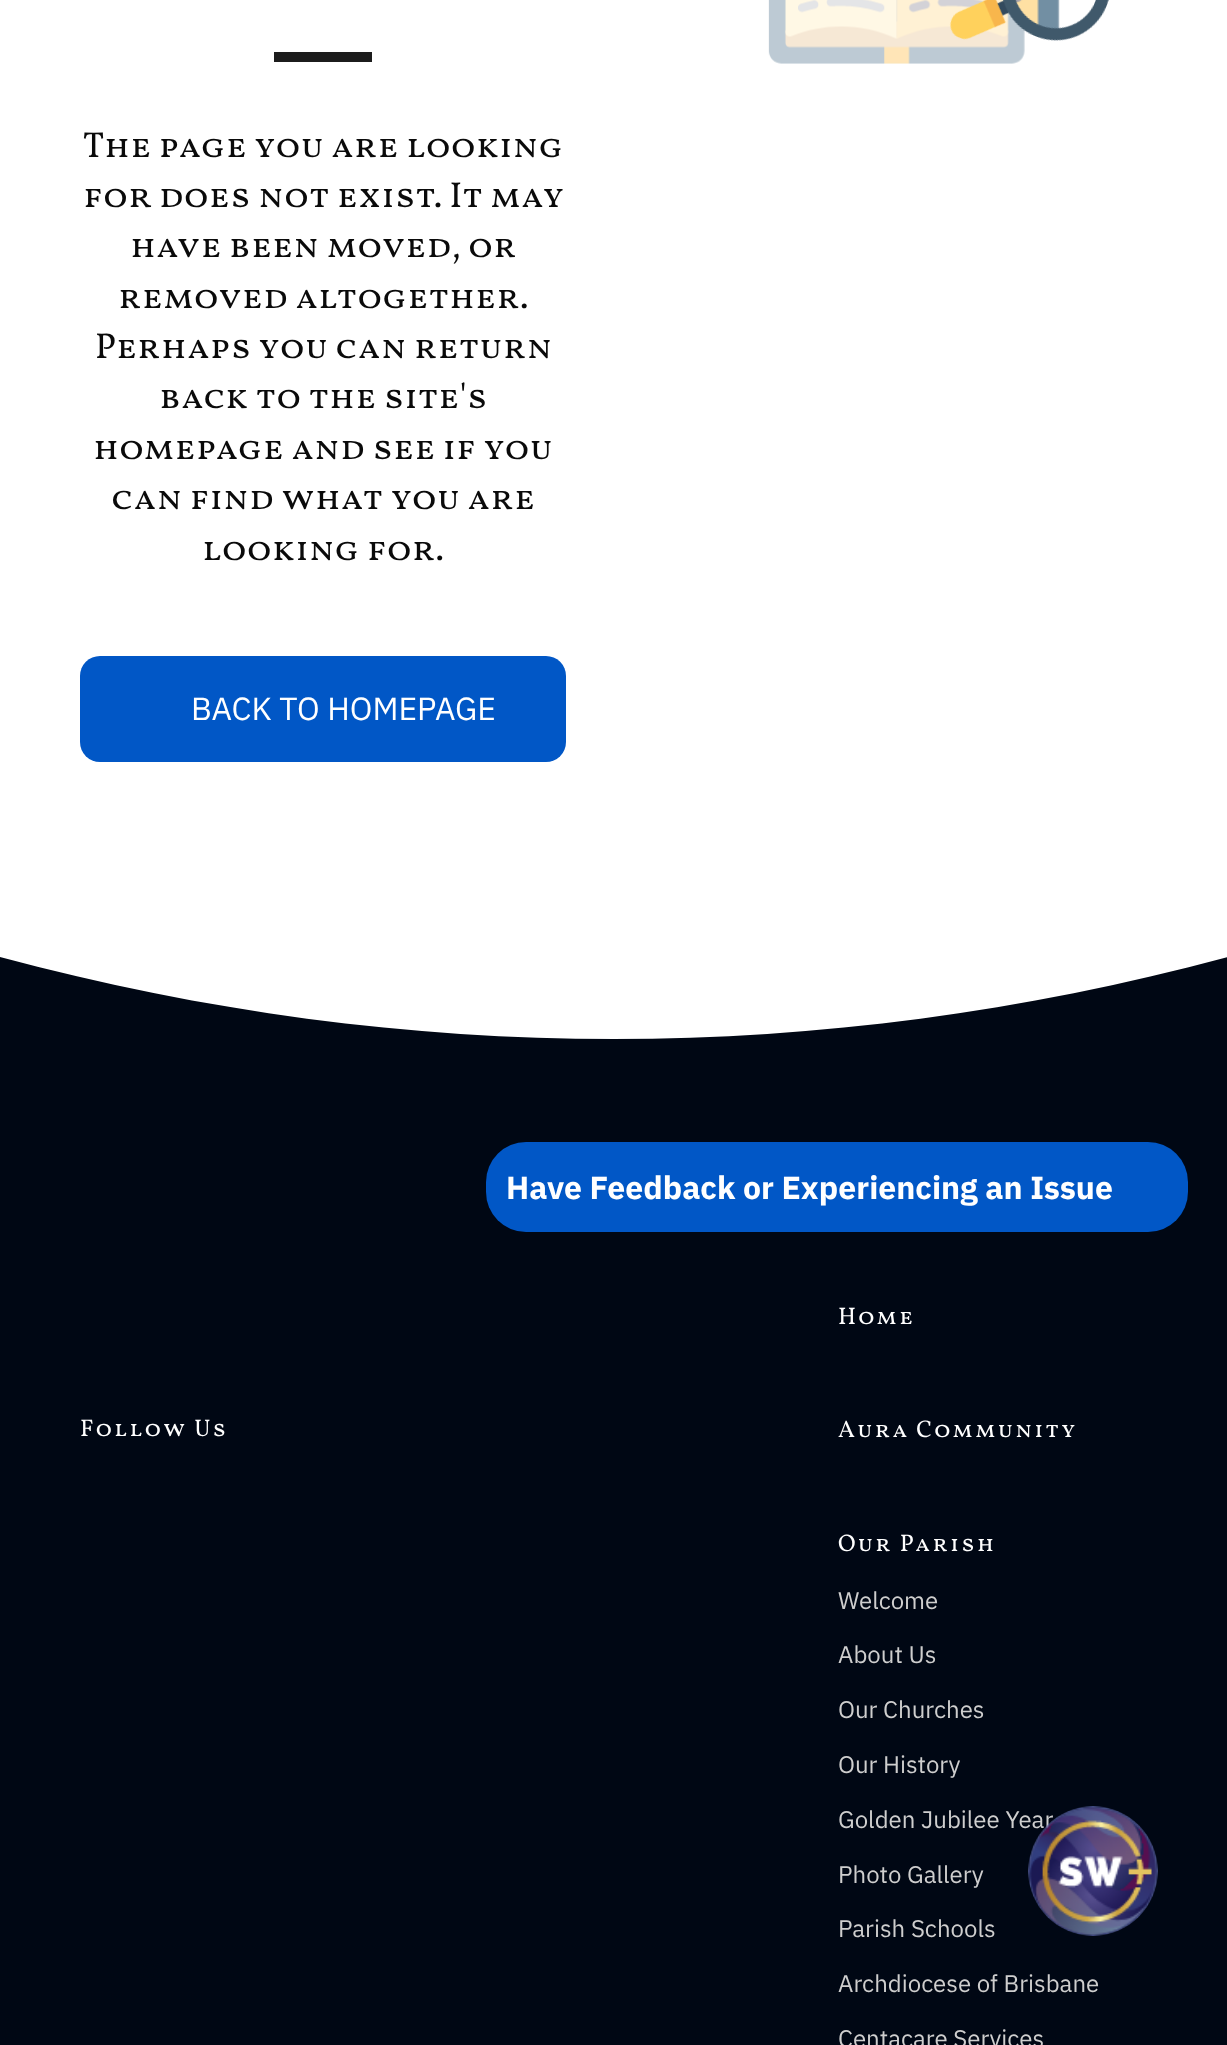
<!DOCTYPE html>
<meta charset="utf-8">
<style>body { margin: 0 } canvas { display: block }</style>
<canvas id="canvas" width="1227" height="2045"></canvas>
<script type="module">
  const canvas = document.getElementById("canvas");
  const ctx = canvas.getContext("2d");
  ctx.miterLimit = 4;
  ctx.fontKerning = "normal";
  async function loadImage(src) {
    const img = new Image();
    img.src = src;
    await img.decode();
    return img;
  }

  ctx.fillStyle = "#ffffff";
  ctx.fillRect(0, 0, 1227, 2045);
  ctx.drawImage(await loadImage("img1.png"), 768, 0, 341, 64);
  ctx.fillStyle = "#1c1c1c";
  ctx.fillRect(274, 52, 98, 10);
  ctx.font = "36px Vollkorn SC";
  ctx.fillStyle = "#0a0a0a";
  ctx.fillText("The page you are looking", 83, 157);
  ctx.fillText("for does not exist. It may", 83, 207);
  ctx.fillText("have been moved, or", 130, 257);
  ctx.fillText("removed altogether.", 118, 308);
  ctx.fillText("Perhaps you can return", 95, 358);
  ctx.fillText("back to the site's", 159, 408);
  ctx.fillText("homepage and see if you", 93, 459);
  ctx.fillText("can find what you are", 111, 509);
  ctx.fillText("looking for.", 202, 560);
  ctx.fillStyle = "#0157c6";
  ctx.beginPath();
  ctx.roundRect(80, 656, 486, 106, 20);
  ctx.fill();
  ctx.font = "32px IBM Plex Sans";
  ctx.fillStyle = "#ffffff";
  ctx.fillText("BACK TO HOMEPAGE", 191, 720);
  ctx.fillStyle = "#000714";
  ctx.fillRect(0, 1056, 1227, 989);
  ctx.save();
  ctx.beginPath();
  ctx.rect(0, 956, 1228, 100);
  ctx.clip();
  ctx.beginPath();
  ctx.moveTo(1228, 1057);
  ctx.lineTo(0, 1057);
  ctx.lineTo(0, 957);
  ctx.bezierCurveTo(205, 1012, 409, 1039, 614, 1039);
  ctx.bezierCurveTo(819, 1039, 1023, 1012, 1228, 957);
  ctx.closePath();
  ctx.fill();
  ctx.restore();
  ctx.fillStyle = "#0157c6";
  ctx.beginPath();
  ctx.roundRect(486, 1142, 702, 90, 40);
  ctx.fill();
  ctx.font = "bold 32px IBM Plex Sans";
  ctx.fillStyle = "#ffffff";
  ctx.fillText("Have Feedback or Experiencing an Issue", 506, 1199);
  ctx.letterSpacing = "2px";
  ctx.font = "24px Vollkorn SC";
  ctx.fillText("Follow Us", 80, 1436);
  ctx.fillText("Home", 838, 1324);
  ctx.fillText("Aura Community", 838, 1437);
  ctx.fillText("Our Parish", 838, 1551);
  ctx.letterSpacing = "0px";
  ctx.font = "24px IBM Plex Sans";
  ctx.fillStyle = "#cecece";
  ctx.fillText("Welcome", 838, 1609);
  ctx.fillText("About Us", 838, 1663);
  ctx.fillText("Our Churches", 838, 1718);
  ctx.fillText("Our History", 838, 1773);
  ctx.fillText("Golden Jubilee Year", 838, 1828);
  ctx.fillText("Photo Gallery", 838, 1883);
  ctx.fillText("Parish Schools", 838, 1937);
  ctx.fillText("Archdiocese of Brisbane", 838, 1992);
  ctx.fillText("Centacare Services", 838, 2047);
  ctx.drawImage(await loadImage("img2.png"), 1028, 1806, 130, 130);
</script>
